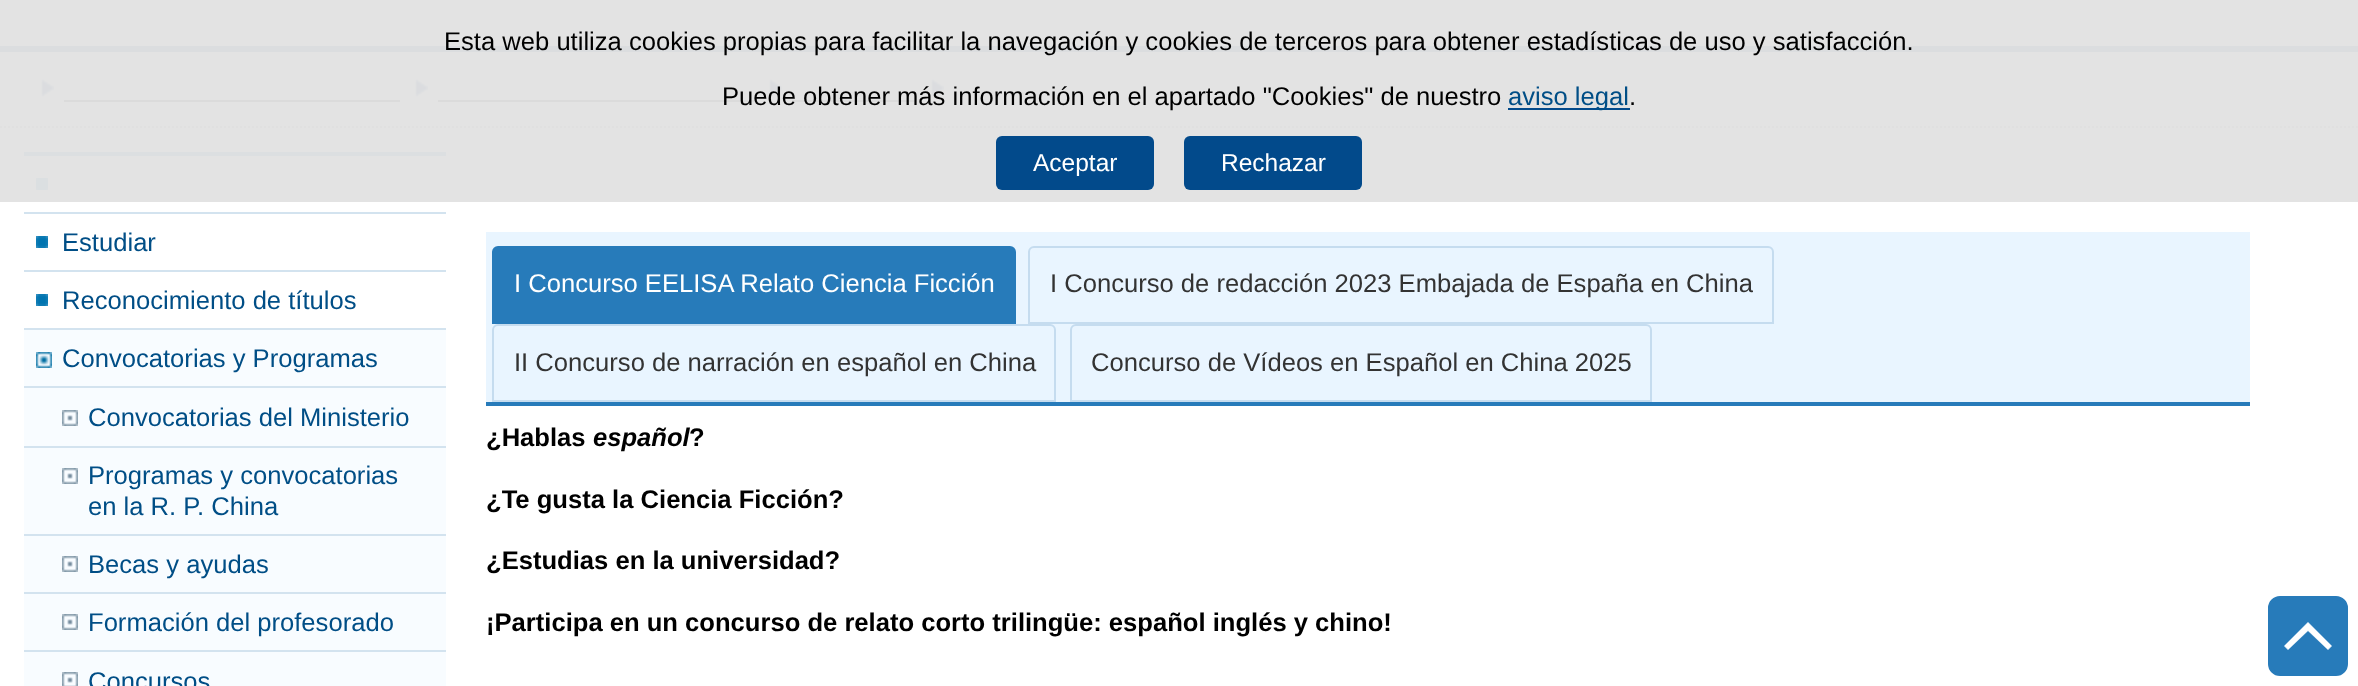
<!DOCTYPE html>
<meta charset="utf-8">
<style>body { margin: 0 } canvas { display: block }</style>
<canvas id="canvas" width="2358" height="686"></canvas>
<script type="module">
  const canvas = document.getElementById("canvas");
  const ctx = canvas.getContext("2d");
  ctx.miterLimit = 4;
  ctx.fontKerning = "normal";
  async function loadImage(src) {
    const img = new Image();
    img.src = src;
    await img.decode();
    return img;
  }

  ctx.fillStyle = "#ffffff";
  ctx.fillRect(0, 0, 2358, 686);
  ctx.fillStyle = "#004e86";
  ctx.fillRect(0, 46, 2358, 6);
  ctx.fillStyle = "#fafafa";
  ctx.fillRect(0, 0, 2358, 46);
  ctx.beginPath();
  ctx.moveTo(0, 127);
  ctx.lineTo(2358, 127);
  ctx.strokeStyle = "#999999";
  ctx.lineWidth = 2;
  ctx.setLineDash([2, 2]);
  ctx.stroke();
  ctx.drawImage(await loadImage("img1.png"), 41, 79, 13, 18);
  ctx.fillStyle = "#000000";
  ctx.fillRect(64, 100, 336, 2);
  ctx.drawImage(await loadImage("img1.png"), 415, 79, 13, 18);
  ctx.fillRect(438, 100, 316, 2);
  ctx.drawImage(await loadImage("img1.png"), 769, 79, 13, 18);
  ctx.fillRect(792, 100, 122, 2);
  ctx.drawImage(await loadImage("img1.png"), 931, 79, 13, 18);
  ctx.fillStyle = "#277bba";
  ctx.fillRect(24, 152, 422, 4);
  ctx.drawImage(await loadImage("img2.png"), 36, 178, 12, 12);
  ctx.fillStyle = "rgba(226, 226, 226, 0.97)";
  ctx.fillRect(0, 0, 2358, 202);
  ctx.font = "25.6px Liberation Sans";
  ctx.fillStyle = "#000000";
  ctx.fillText("Esta web utiliza cookies propias para facilitar la navegación y cookies de terceros para obtener estadísticas de uso y satisfacción.", 444, 50);
  ctx.fillText("Puede obtener más información en el apartado \"Cookies\" de nuestro", 722, 105);
  ctx.fillStyle = "#024a8b";
  ctx.fillRect(1508, 108, 122, 2);
  ctx.fillStyle = "#004e86";
  ctx.fillText("aviso legal", 1508, 105);
  ctx.fillStyle = "#000000";
  ctx.fillText(".", 1629, 105);
  ctx.fillStyle = "#024a8b";
  ctx.beginPath();
  ctx.roundRect(996, 136, 158, 54, 6);
  ctx.fill();
  ctx.font = "24.5px Liberation Sans";
  ctx.fillStyle = "#ffffff";
  ctx.fillText("Aceptar", 1033, 171);
  ctx.fillStyle = "#024a8b";
  ctx.beginPath();
  ctx.roundRect(1184, 136, 178, 54, 6);
  ctx.fill();
  ctx.fillStyle = "#ffffff";
  ctx.fillText("Rechazar", 1221, 171);
  ctx.fillStyle = "#d3e3ef";
  ctx.fillRect(24, 212, 422, 2);
  ctx.drawImage(await loadImage("img2.png"), 36, 236, 12, 12);
  ctx.fillRect(24, 270, 422, 2);
  ctx.font = "25.6px Liberation Sans";
  ctx.fillStyle = "#004e86";
  ctx.fillText("Estudiar", 62, 251);
  ctx.drawImage(await loadImage("img2.png"), 36, 294, 12, 12);
  ctx.fillStyle = "#d3e3ef";
  ctx.fillRect(24, 328, 422, 2);
  ctx.fillStyle = "#004e86";
  ctx.fillText("Reconocimiento de títulos", 62, 309);
  ctx.fillStyle = "#f8fcff";
  ctx.fillRect(24, 330, 422, 356);
  ctx.drawImage(await loadImage("img3.png"), 36, 352, 16, 16);
  ctx.fillStyle = "#d3e3ef";
  ctx.fillRect(24, 386, 422, 2);
  ctx.fillStyle = "#004e86";
  ctx.fillText("Convocatorias y Programas", 62, 367);
  ctx.drawImage(await loadImage("img4.png"), 62, 410, 16, 16);
  ctx.fillStyle = "#d3e3ef";
  ctx.fillRect(24, 446, 422, 2);
  ctx.fillStyle = "#004e86";
  ctx.fillText("Convocatorias del Ministerio", 88, 426);
  ctx.drawImage(await loadImage("img4.png"), 62, 468, 16, 16);
  ctx.fillStyle = "#d3e3ef";
  ctx.fillRect(24, 534, 422, 2);
  ctx.fillStyle = "#004e86";
  ctx.fillText("Programas y convocatorias", 88, 484);
  ctx.fillText("en la R. P. China", 88, 515);
  ctx.drawImage(await loadImage("img4.png"), 62, 556, 16, 16);
  ctx.fillStyle = "#d3e3ef";
  ctx.fillRect(24, 592, 422, 2);
  ctx.fillStyle = "#004e86";
  ctx.fillText("Becas y ayudas", 88, 573);
  ctx.drawImage(await loadImage("img4.png"), 62, 614, 16, 16);
  ctx.fillStyle = "#d3e3ef";
  ctx.fillRect(24, 650, 422, 2);
  ctx.fillStyle = "#004e86";
  ctx.fillText("Formación del profesorado", 88, 631);
  ctx.drawImage(await loadImage("img5.png"), 62, 672, 16, 14);
  ctx.fillText("Concursos", 88, 690);
  ctx.fillStyle = "#e9f5ff";
  ctx.fillRect(486, 232, 1764, 170);
  ctx.fillStyle = "#277bba";
  ctx.fillRect(486, 402, 1764, 4);
  ctx.beginPath();
  ctx.roundRect(493, 247, 522, 76, [5, 5, 0, 0]);
  ctx.fill();
  ctx.strokeStyle = "#277bba";
  ctx.setLineDash([]);
  ctx.stroke();
  ctx.fillStyle = "#ffffff";
  ctx.fillText("I Concurso EELISA Relato Ciencia Ficción", 514, 292);
  ctx.beginPath();
  ctx.roundRect(1029, 247, 744, 76, [5, 5, 0, 0]);
  ctx.strokeStyle = "#c5dcef";
  ctx.stroke();
  ctx.fillStyle = "#333333";
  ctx.fillText("I Concurso de redacción 2023 Embajada de España en China", 1050, 292);
  ctx.beginPath();
  ctx.roundRect(493, 325, 562, 76, [5, 5, 0, 0]);
  ctx.stroke();
  ctx.fillText("II Concurso de narración en español en China", 514, 371);
  ctx.beginPath();
  ctx.roundRect(1071, 325, 580, 76, [5, 5, 0, 0]);
  ctx.stroke();
  ctx.fillText("Concurso de Vídeos en Español en China 2025", 1091, 371);
  ctx.font = "bold 25.6px Liberation Sans";
  ctx.fillStyle = "#000000";
  ctx.fillText("¿Hablas", 486, 446);
  ctx.font = "italic bold 25.6px Liberation Sans";
  ctx.fillText("español", 593, 446);
  ctx.font = "bold 25.6px Liberation Sans";
  ctx.fillText("?", 689, 446);
  ctx.fillText("¿Te gusta la Ciencia Ficción?", 486, 508);
  ctx.fillText("¿Estudias en la universidad?", 486, 569);
  ctx.fillText("¡Participa en un concurso de relato corto trilingüe: español inglés y chino!", 486, 631);
  ctx.fillStyle = "#277bba";
  ctx.beginPath();
  ctx.roundRect(2270, 598, 76, 76, 10);
  ctx.fill();
  ctx.strokeStyle = "#277bba";
  ctx.lineWidth = 4;
  ctx.stroke();
  ctx.fillStyle = "#ffffff";
  ctx.beginPath();
  ctx.moveTo(2332, 646);
  ctx.lineTo(2328, 650);
  ctx.lineTo(2308, 631);
  ctx.lineTo(2288, 650);
  ctx.lineTo(2284, 646);
  ctx.lineTo(2308, 622);
  ctx.closePath();
  ctx.fill();
  ctx.beginPath();
  ctx.moveTo(2332, 645.5);
  ctx.lineTo(2327.5, 649.5);
  ctx.lineTo(2308, 630.5);
  ctx.lineTo(2288.5, 649.5);
  ctx.lineTo(2284, 645.5);
  ctx.lineTo(2308, 622.5);
  ctx.closePath();
  ctx.lineWidth = 0.1;
  ctx.stroke();
</script>
